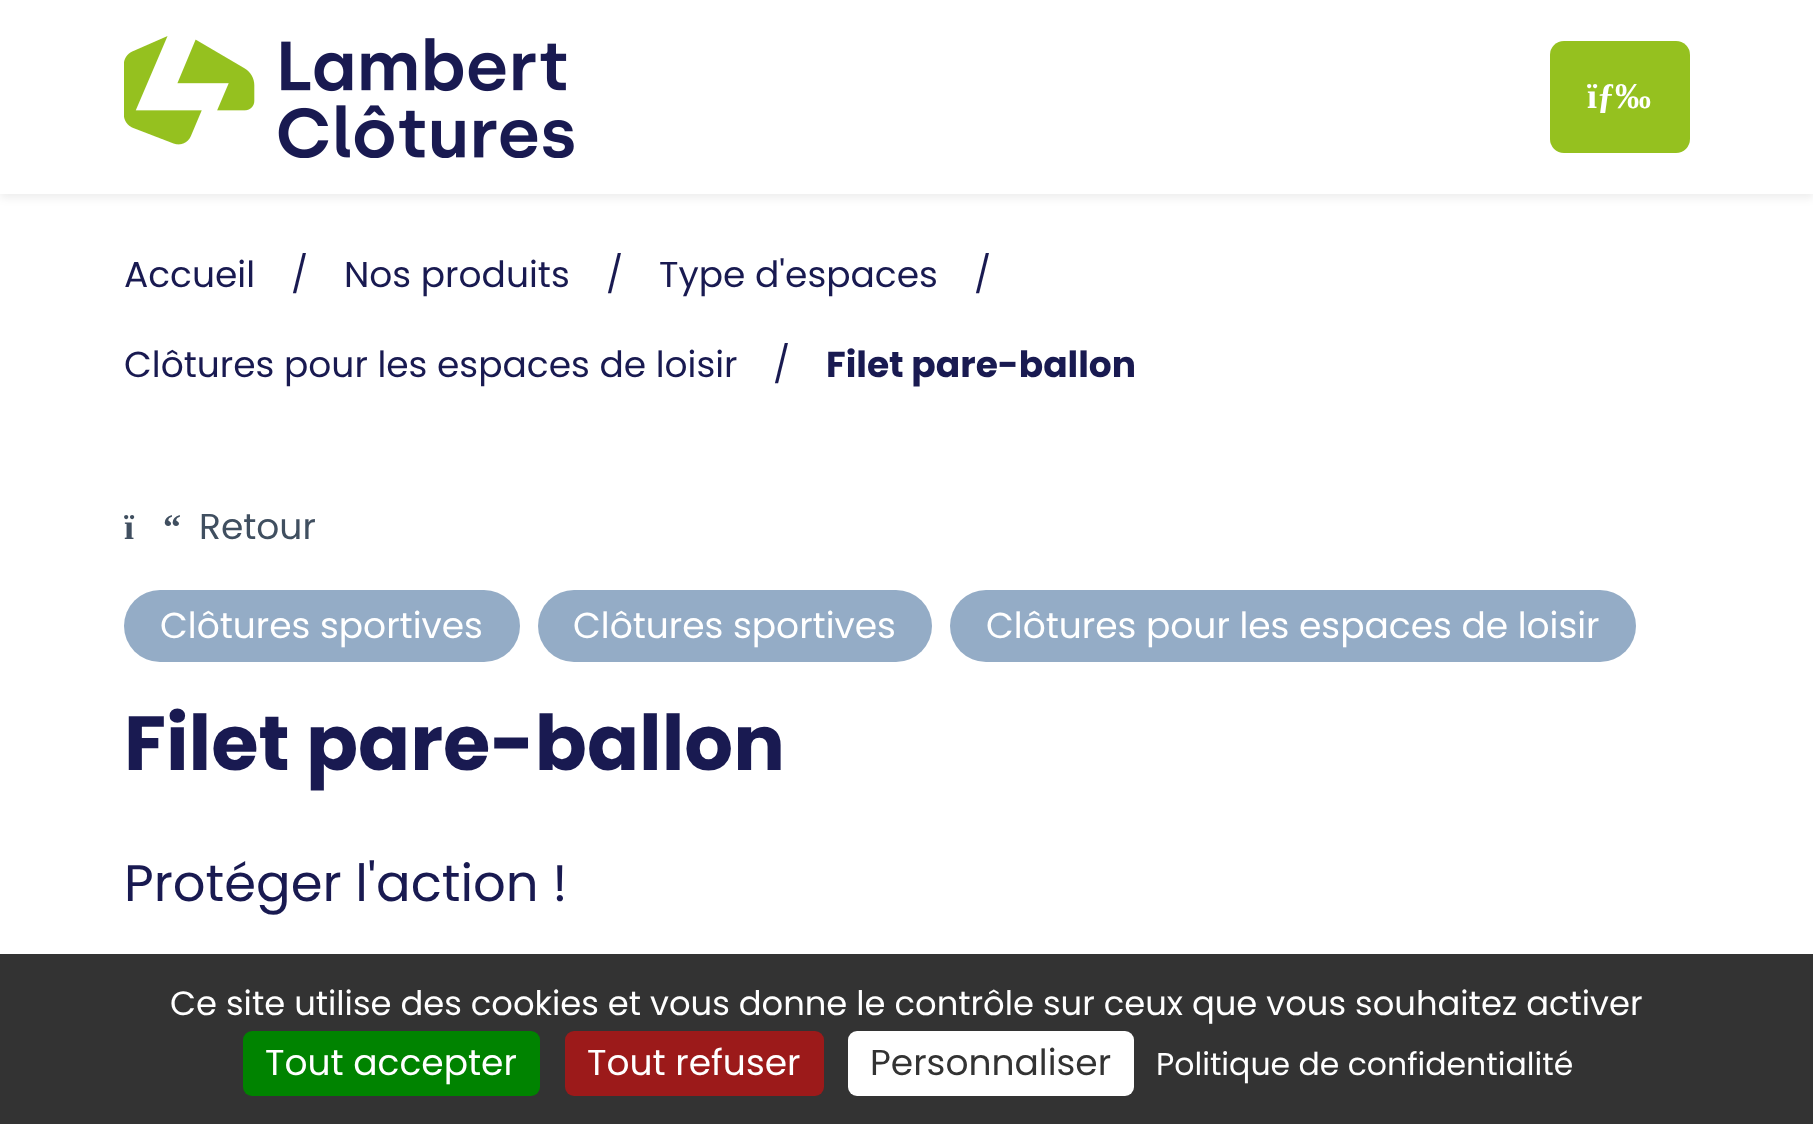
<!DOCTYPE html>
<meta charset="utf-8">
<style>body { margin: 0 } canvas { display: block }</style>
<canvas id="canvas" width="1813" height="1124"></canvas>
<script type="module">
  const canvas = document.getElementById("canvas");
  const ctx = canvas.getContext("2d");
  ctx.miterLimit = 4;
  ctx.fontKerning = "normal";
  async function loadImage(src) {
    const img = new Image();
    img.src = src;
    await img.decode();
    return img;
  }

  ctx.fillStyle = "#ffffff";
  ctx.fillRect(0, 0, 1813, 1124);
  ctx.fillStyle = "rgba(0, 0, 0, 0.07)";
  ctx.filter = "blur(4.5px)";
  ctx.beginPath();
  ctx.rect(0, 5, 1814, 193);
  ctx.fill();
  ctx.filter = "none";
  ctx.fillStyle = "#ffffff";
  ctx.fillRect(0, 0, 1813, 194);
  ctx.drawImage(await loadImage("img1.png"), 124, 36, 450, 122);
  ctx.fillStyle = "#95c11f";
  ctx.beginPath();
  ctx.roundRect(1550, 41, 140, 112, 14);
  ctx.fill();
  ctx.font = "bold 36px Liberation Serif";
  ctx.fillStyle = "#ffffff";
  ctx.fillText("ïƒ‰", 1587, 108);
  ctx.font = "36px Poppins";
  ctx.fillStyle = "#191a51";
  ctx.fillText("Accueil", 124, 287);
  ctx.fillText("/", 291, 287);
  ctx.fillText("Nos produits", 344, 287);
  ctx.fillText("/", 606, 287);
  ctx.fillText("Type d'espaces", 659, 287);
  ctx.fillText("/", 974, 287);
  ctx.fillText("Clôtures pour les espaces de loisir", 124, 377);
  ctx.fillText("/", 773, 377);
  ctx.font = "bold 36px Poppins";
  ctx.fillText("Filet pare-ballon", 826, 377);
  ctx.font = "bold 36px Liberation Serif";
  ctx.fillStyle = "#404f60";
  ctx.fillText("ï", 124, 539);
  ctx.fillText("“", 163, 539);
  ctx.font = "36px Poppins";
  ctx.fillText("Retour", 199, 539);
  ctx.fillStyle = "#94acc6";
  ctx.beginPath();
  ctx.roundRect(124, 590, 396, 72, 36);
  ctx.fill();
  ctx.fillStyle = "#ffffff";
  ctx.fillText("Clôtures sportives", 160, 638);
  ctx.fillStyle = "#94acc6";
  ctx.beginPath();
  ctx.roundRect(538, 590, 394, 72, 36);
  ctx.fill();
  ctx.fillStyle = "#ffffff";
  ctx.fillText("Clôtures sportives", 573, 638);
  ctx.fillStyle = "#94acc6";
  ctx.beginPath();
  ctx.roundRect(950, 590, 686, 72, 36);
  ctx.fill();
  ctx.fillStyle = "#ffffff";
  ctx.fillText("Clôtures pour les espaces de loisir", 986, 638);
  ctx.font = "bold 76.75px Poppins";
  ctx.fillStyle = "#191a51";
  ctx.fillText("Filet pare-ballon", 124, 770);
  ctx.font = "51.25px Poppins";
  ctx.fillText("Protéger l'action !", 124, 901);
  ctx.fillStyle = "#333333";
  ctx.fillRect(0, 954, 1813, 170);
  ctx.font = "33.75px Poppins";
  ctx.fillStyle = "#ffffff";
  ctx.fillText("Ce site utilise des cookies et vous donne le contrôle sur ceux que vous souhaitez activer", 170, 1015);
  ctx.fillStyle = "#008300";
  ctx.beginPath();
  ctx.roundRect(243, 1031, 297, 65, 9);
  ctx.fill();
  ctx.font = "36px Poppins";
  ctx.fillStyle = "#ffffff";
  ctx.fillText("Tout accepter", 265, 1075);
  ctx.fillStyle = "#9c1a1a";
  ctx.beginPath();
  ctx.roundRect(565, 1031, 259, 65, 9);
  ctx.fill();
  ctx.fillStyle = "#ffffff";
  ctx.fillText("Tout refuser", 587, 1075);
  ctx.beginPath();
  ctx.roundRect(848, 1031, 286, 65, 9);
  ctx.fill();
  ctx.fillStyle = "#333333";
  ctx.fillText("Personnaliser", 870, 1075);
  ctx.font = "31.5px Poppins";
  ctx.fillStyle = "#ffffff";
  ctx.fillText("Politique de confidentialité", 1156, 1075);
</script>
